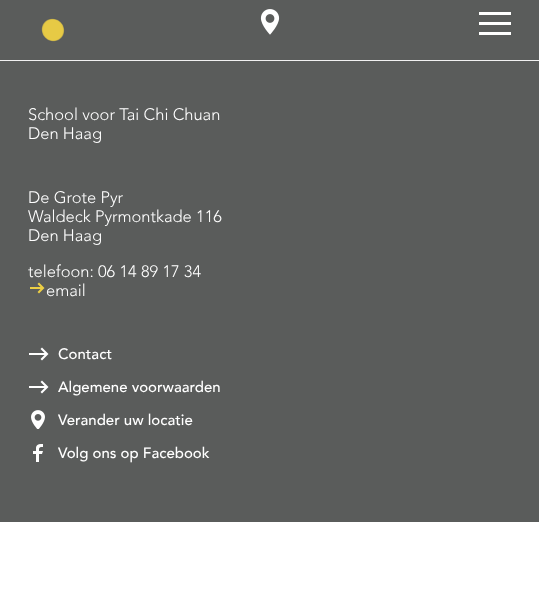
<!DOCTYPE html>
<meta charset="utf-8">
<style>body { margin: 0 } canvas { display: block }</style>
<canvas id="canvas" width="539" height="603"></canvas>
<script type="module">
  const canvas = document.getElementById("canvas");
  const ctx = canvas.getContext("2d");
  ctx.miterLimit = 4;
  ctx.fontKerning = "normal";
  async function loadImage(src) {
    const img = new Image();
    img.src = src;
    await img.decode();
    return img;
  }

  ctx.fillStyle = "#ffffff";
  ctx.fillRect(0, 0, 539, 603);
  ctx.fillStyle = "#5a5c5b";
  ctx.fillRect(0, 0, 539, 60);
  ctx.drawImage(await loadImage("img1.png"), 41, 18, 24, 24);
  ctx.drawImage(await loadImage("img2.png"), 260, 9, 20, 26);
  ctx.fillStyle = "#ffffff";
  ctx.fillRect(479, 12, 32, 3);
  ctx.fillRect(479, 22, 32, 3);
  ctx.fillRect(479, 32, 32, 3);
  ctx.fillStyle = "#f1f1f1";
  ctx.fillRect(0, 60, 539, 1);
  ctx.fillStyle = "#5a5c5b";
  ctx.fillRect(0, 61, 539, 461);
  ctx.font = "16.5px Avenir";
  ctx.fillStyle = "#ffffff";
  ctx.fillText("School voor Tai Chi Chuan", 28, 120);
  ctx.fillText("Den Haag", 28, 139);
  ctx.fillText("De Grote Pyr", 28, 203);
  ctx.fillText("Waldeck Pyrmontkade 116", 28, 222);
  ctx.fillText("Den Haag", 28, 241);
  ctx.fillText("telefoon: 06 14 89 17 34", 28, 277);
  ctx.fillStyle = "#edcf45";
  ctx.fillRect(30, 287, 12, 2);
  ctx.beginPath();
  ctx.moveTo(39, 284);
  ctx.lineTo(43, 288);
  ctx.lineTo(39, 292);
  ctx.strokeStyle = "#edcf45";
  ctx.lineWidth = 2.1;
  ctx.lineCap = "square";
  ctx.stroke();
  ctx.fillStyle = "#ffffff";
  ctx.fillText("email", 46, 296);
  ctx.fillRect(29, 353, 18, 2);
  ctx.beginPath();
  ctx.moveTo(42, 349);
  ctx.lineTo(47, 354);
  ctx.lineTo(42, 359);
  ctx.strokeStyle = "#ffffff";
  ctx.stroke();
  ctx.font = "15px 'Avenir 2'";
  ctx.fillText("Contact", 58, 359);
  ctx.fillRect(29, 386, 18, 2);
  ctx.beginPath();
  ctx.moveTo(42, 382);
  ctx.lineTo(47, 387);
  ctx.lineTo(42, 392);
  ctx.stroke();
  ctx.fillText("Algemene voorwaarden", 58, 392);
  ctx.drawImage(await loadImage("img3.png"), 31, 410, 14, 19);
  ctx.fillText("Verander uw locatie", 58, 425);
  ctx.drawImage(await loadImage("img4.png"), 33, 444, 10, 18);
  ctx.fillText("Volg ons op Facebook", 58, 458);
</script>
